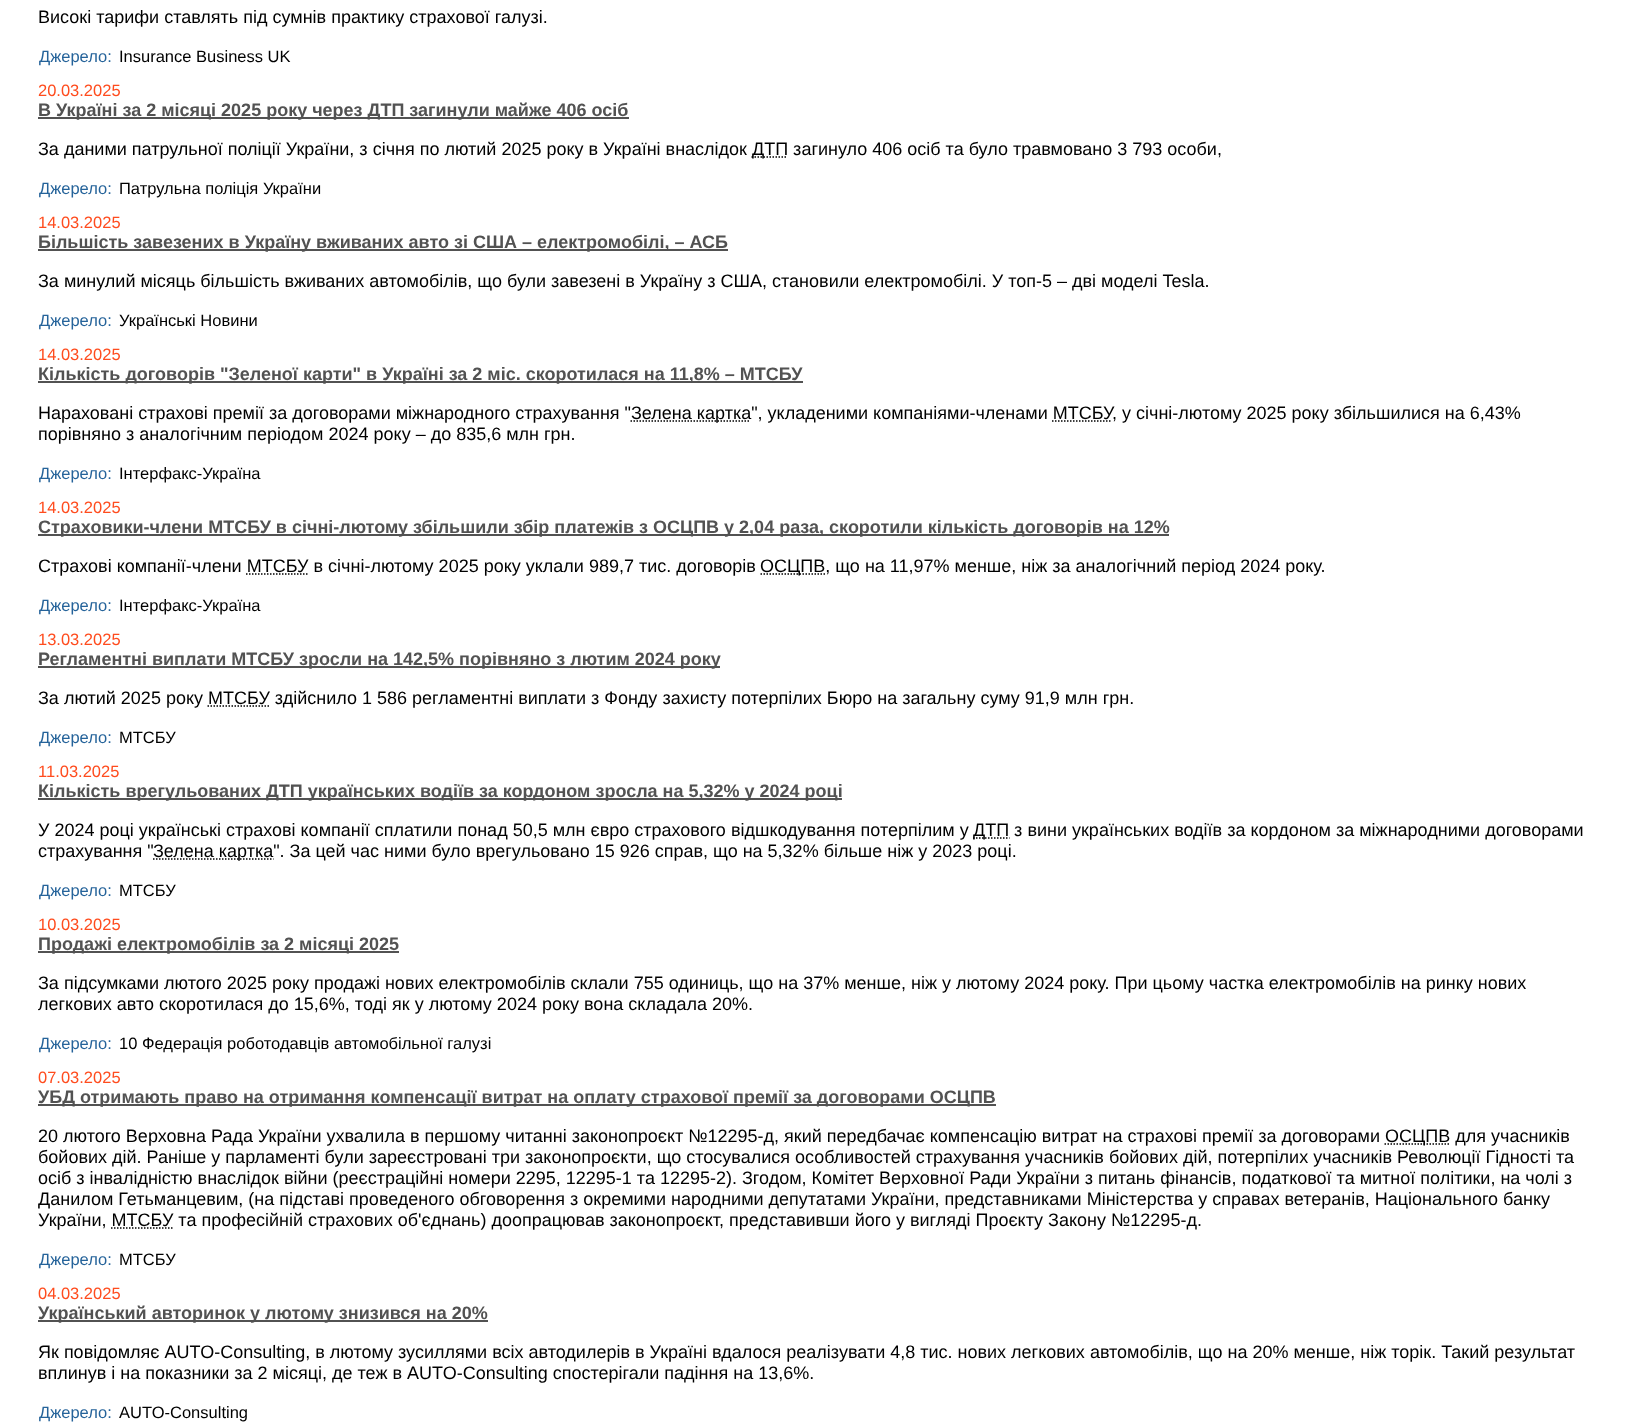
<!DOCTYPE html>
<meta charset="utf-8">
<style>body { margin: 0 } canvas { display: block }</style>
<canvas id="canvas" width="1627" height="1423"></canvas>
<script type="module">
  const canvas = document.getElementById("canvas");
  const ctx = canvas.getContext("2d");
  ctx.miterLimit = 4;
  ctx.fontKerning = "normal";

  ctx.fillStyle = "#ffffff";
  ctx.fillRect(0, 0, 1627, 1423);
  ctx.font = "18px Liberation Sans";
  ctx.fillStyle = "#000000";
  ctx.fillText("Високі тарифи ставлять під сумнів практику страхової галузі.", 38, 23);
  ctx.font = "16.5px Liberation Sans";
  ctx.fillStyle = "#25639a";
  ctx.fillText("Джерело:", 39, 62);
  ctx.fillStyle = "#000000";
  ctx.fillText("Insurance Business UK", 119, 62);
  ctx.fillStyle = "#ff4c1e";
  ctx.fillText("20.03.2025", 38, 96);
  ctx.fillStyle = "#525252";
  ctx.fillRect(38, 117, 591, 2);
  ctx.font = "bold 18px Liberation Sans";
  ctx.fillText("В Україні за 2 місяці 2025 року через ДТП загинули майже 406 осіб", 38, 116);
  ctx.font = "18px Liberation Sans";
  ctx.fillStyle = "#000000";
  ctx.fillText("За даними патрульної поліції України, з січня по лютий 2025 року в Україні внаслідок", 38, 155);
  ctx.beginPath();
  ctx.moveTo(751.5, 157);
  ctx.lineTo(787.5, 157);
  ctx.strokeStyle = "#000000";
  ctx.lineWidth = 1.5;
  ctx.setLineDash([1.5, 1.5]);
  ctx.stroke();
  ctx.fillText("ДТП загинуло 406 осіб та було травмовано 3 793 особи,", 752, 155);
  ctx.font = "16.5px Liberation Sans";
  ctx.fillStyle = "#25639a";
  ctx.fillText("Джерело:", 39, 194);
  ctx.fillStyle = "#000000";
  ctx.fillText("Патрульна поліція України", 119, 194);
  ctx.fillStyle = "#ff4c1e";
  ctx.fillText("14.03.2025", 38, 228);
  ctx.fillStyle = "#525252";
  ctx.fillRect(38, 249, 690, 2);
  ctx.font = "bold 18px Liberation Sans";
  ctx.fillText("Більшість завезених в Україну вживаних авто зі США – електромобілі, – АСБ", 38, 248);
  ctx.font = "18px Liberation Sans";
  ctx.fillStyle = "#000000";
  ctx.fillText("За минулий місяць більшість вживаних автомобілів, що були завезені в Україну з США, становили електромобілі. У топ-5 – дві моделі Tesla.", 38, 287);
  ctx.font = "16.5px Liberation Sans";
  ctx.fillStyle = "#25639a";
  ctx.fillText("Джерело:", 39, 326);
  ctx.fillStyle = "#000000";
  ctx.fillText("Українські Новини", 119, 326);
  ctx.fillStyle = "#ff4c1e";
  ctx.fillText("14.03.2025", 38, 360);
  ctx.fillStyle = "#525252";
  ctx.fillRect(38, 381, 765, 2);
  ctx.font = "bold 18px Liberation Sans";
  ctx.fillText("Кількість договорів \"Зеленої карти\" в Україні за 2 міс. скоротилася на 11,8% – МТСБУ", 38, 380);
  ctx.font = "18px Liberation Sans";
  ctx.fillStyle = "#000000";
  ctx.fillText("Нараховані страхові премії за договорами міжнародного страхування \"", 38, 419);
  ctx.beginPath();
  ctx.moveTo(630.5, 421);
  ctx.lineTo(750.5, 421);
  ctx.stroke();
  ctx.fillText("Зелена картка\", укладеними компаніями-членами МТСБУ", 631, 419);
  ctx.fillText(", у січні-лютому 2025 року збільшилися на 6,43%", 1112, 419);
  ctx.beginPath();
  ctx.moveTo(1052, 421);
  ctx.lineTo(1111.5, 421);
  ctx.stroke();
  ctx.fillText("порівняно з аналогічним періодом 2024 року – до 835,6 млн грн.", 38, 440);
  ctx.font = "16.5px Liberation Sans";
  ctx.fillStyle = "#25639a";
  ctx.fillText("Джерело:", 39, 479);
  ctx.fillStyle = "#000000";
  ctx.fillText("Інтерфакс-Україна", 119, 479);
  ctx.fillStyle = "#ff4c1e";
  ctx.fillText("14.03.2025", 38, 513);
  ctx.fillStyle = "#525252";
  ctx.fillRect(38, 534, 1131, 2);
  ctx.font = "bold 18px Liberation Sans";
  ctx.fillText("Страховики-члени МТСБУ в січні-лютому збільшили збір платежів з ОСЦПВ у 2,04 раза, скоротили кількість договорів на 12%", 38, 533);
  ctx.font = "18px Liberation Sans";
  ctx.fillStyle = "#000000";
  ctx.fillText("Страхові компанії-члени МТСБУ в січні-лютому 2025 року уклали 989,7 тис. договорів", 38, 572);
  ctx.beginPath();
  ctx.moveTo(760.5, 574);
  ctx.lineTo(825.5, 574);
  ctx.stroke();
  ctx.fillText("ОСЦПВ, що на 11,97% менше, ніж за аналогічний період 2024 року.", 760, 572);
  ctx.beginPath();
  ctx.moveTo(246, 574);
  ctx.lineTo(308, 574);
  ctx.stroke();
  ctx.font = "16.5px Liberation Sans";
  ctx.fillStyle = "#25639a";
  ctx.fillText("Джерело:", 39, 611);
  ctx.fillStyle = "#000000";
  ctx.fillText("Інтерфакс-Україна", 119, 611);
  ctx.fillStyle = "#ff4c1e";
  ctx.fillText("13.03.2025", 38, 645);
  ctx.fillStyle = "#525252";
  ctx.fillRect(38, 666, 682, 2);
  ctx.font = "bold 18px Liberation Sans";
  ctx.fillText("Регламентні виплати МТСБУ зросли на 142,5% порівняно з лютим 2024 року", 38, 665);
  ctx.font = "18px Liberation Sans";
  ctx.fillStyle = "#000000";
  ctx.fillText("За лютий 2025 року МТСБУ здійснило 1 586 регламентні виплати з Фонду захисту потерпілих Бюро на загальну суму 91,9 млн грн.", 38, 704);
  ctx.beginPath();
  ctx.moveTo(207.5, 706);
  ctx.lineTo(269.5, 706);
  ctx.stroke();
  ctx.font = "16.5px Liberation Sans";
  ctx.fillStyle = "#25639a";
  ctx.fillText("Джерело:", 39, 743);
  ctx.fillStyle = "#000000";
  ctx.fillText("МТСБУ", 119, 743);
  ctx.fillStyle = "#ff4c1e";
  ctx.fillText("11.03.2025", 38, 777);
  ctx.fillStyle = "#525252";
  ctx.fillRect(38, 798, 804, 2);
  ctx.font = "bold 18px Liberation Sans";
  ctx.fillText("Кількість врегульованих ДТП українських водіїв за кордоном зросла на 5,32% у 2024 році", 38, 797);
  ctx.font = "18px Liberation Sans";
  ctx.fillStyle = "#000000";
  ctx.fillText("У 2024 році українські страхові компанії сплатили понад 50,5 млн євро страхового відшкодування потерпілим у", 38, 836);
  ctx.beginPath();
  ctx.moveTo(973, 838);
  ctx.lineTo(1009.5, 838);
  ctx.stroke();
  ctx.fillText("ДТП з вини українських водіїв за кордоном за міжнародними договорами", 973, 836);
  ctx.fillText("страхування \"", 38, 857);
  ctx.beginPath();
  ctx.moveTo(153, 859);
  ctx.lineTo(273.5, 859);
  ctx.stroke();
  ctx.fillText("Зелена картка\". За цей час ними було врегульовано 15 926 справ, що на 5,32% більше ніж у 2023 році.", 153, 857);
  ctx.font = "16.5px Liberation Sans";
  ctx.fillStyle = "#25639a";
  ctx.fillText("Джерело:", 39, 896);
  ctx.fillStyle = "#000000";
  ctx.fillText("МТСБУ", 119, 896);
  ctx.fillStyle = "#ff4c1e";
  ctx.fillText("10.03.2025", 38, 930);
  ctx.fillStyle = "#525252";
  ctx.fillRect(38, 951, 361, 2);
  ctx.font = "bold 18px Liberation Sans";
  ctx.fillText("Продажі електромобілів за 2 місяці 2025", 38, 950);
  ctx.font = "18px Liberation Sans";
  ctx.fillStyle = "#000000";
  ctx.fillText("За підсумками лютого 2025 року продажі нових електромобілів склали 755 одиниць, що на 37% менше, ніж у лютому 2024 року. При цьому частка електромобілів на ринку нових", 38, 989);
  ctx.fillText("легкових авто скоротилася до 15,6%, тоді як у лютому 2024 року вона складала 20%.", 38, 1010);
  ctx.font = "16.5px Liberation Sans";
  ctx.fillStyle = "#25639a";
  ctx.fillText("Джерело:", 39, 1049);
  ctx.fillStyle = "#000000";
  ctx.fillText("10 Федерація роботодавців автомобільної галузі", 119, 1049);
  ctx.fillStyle = "#ff4c1e";
  ctx.fillText("07.03.2025", 38, 1083);
  ctx.fillStyle = "#525252";
  ctx.fillRect(38, 1104, 958, 2);
  ctx.font = "bold 18px Liberation Sans";
  ctx.fillText("УБД отримають право на отримання компенсації витрат на оплату страхової премії за договорами ОСЦПВ", 38, 1103);
  ctx.font = "18px Liberation Sans";
  ctx.fillStyle = "#000000";
  ctx.fillText("20 лютого Верховна Рада України ухвалила в першому читанні законопроєкт №12295-д, який передбачає компенсацію витрат на страхові премії за договорами", 38, 1142);
  ctx.beginPath();
  ctx.moveTo(1384.5, 1144);
  ctx.lineTo(1450, 1144);
  ctx.stroke();
  ctx.fillText("ОСЦПВ для учасників", 1385, 1142);
  ctx.fillText("бойових дій. Раніше у парламенті були зареєстровані три законопроєкти, що стосувалися особливостей страхування учасників бойових дій, потерпілих учасників Революції Гідності та", 38, 1163);
  ctx.fillText("осіб з інвалідністю внаслідок війни (реєстраційні номери 2295, 12295-1 та 12295-2). Згодом, Комітет Верховної Ради України з питань фінансів, податкової та митної політики, на чолі з", 38, 1184);
  ctx.fillText("Данилом Гетьманцевим, (на підставі проведеного обговорення з окремими народними депутатами України, представниками Міністерства у справах ветеранів, Національного банку", 38, 1205);
  ctx.fillText("України, МТСБУ та професійній страхових об'єднань) доопрацював законопроєкт, представивши його у вигляді Проєкту Закону №12295-д.", 38, 1226);
  ctx.beginPath();
  ctx.moveTo(111, 1228);
  ctx.lineTo(173, 1228);
  ctx.stroke();
  ctx.font = "16.5px Liberation Sans";
  ctx.fillStyle = "#25639a";
  ctx.fillText("Джерело:", 39, 1265);
  ctx.fillStyle = "#000000";
  ctx.fillText("МТСБУ", 119, 1265);
  ctx.fillStyle = "#ff4c1e";
  ctx.fillText("04.03.2025", 38, 1299);
  ctx.fillStyle = "#525252";
  ctx.fillRect(38, 1320, 450, 2);
  ctx.font = "bold 18px Liberation Sans";
  ctx.fillText("Український авторинок у лютому знизився на 20%", 38, 1319);
  ctx.font = "18px Liberation Sans";
  ctx.fillStyle = "#000000";
  ctx.fillText("Як повідомляє AUTO-Consulting, в лютому зусиллями всіх автодилерів в Україні вдалося реалізувати 4,8 тис. нових легкових автомобілів, що на 20% менше, ніж торік. Такий результат", 38, 1358);
  ctx.fillText("вплинув і на показники за 2 місяці, де теж в AUTO-Consulting спостерігали падіння на 13,6%.", 38, 1379);
  ctx.font = "16.5px Liberation Sans";
  ctx.fillStyle = "#25639a";
  ctx.fillText("Джерело:", 39, 1418);
  ctx.fillStyle = "#000000";
  ctx.fillText("AUTO-Consulting", 119, 1418);
</script>
